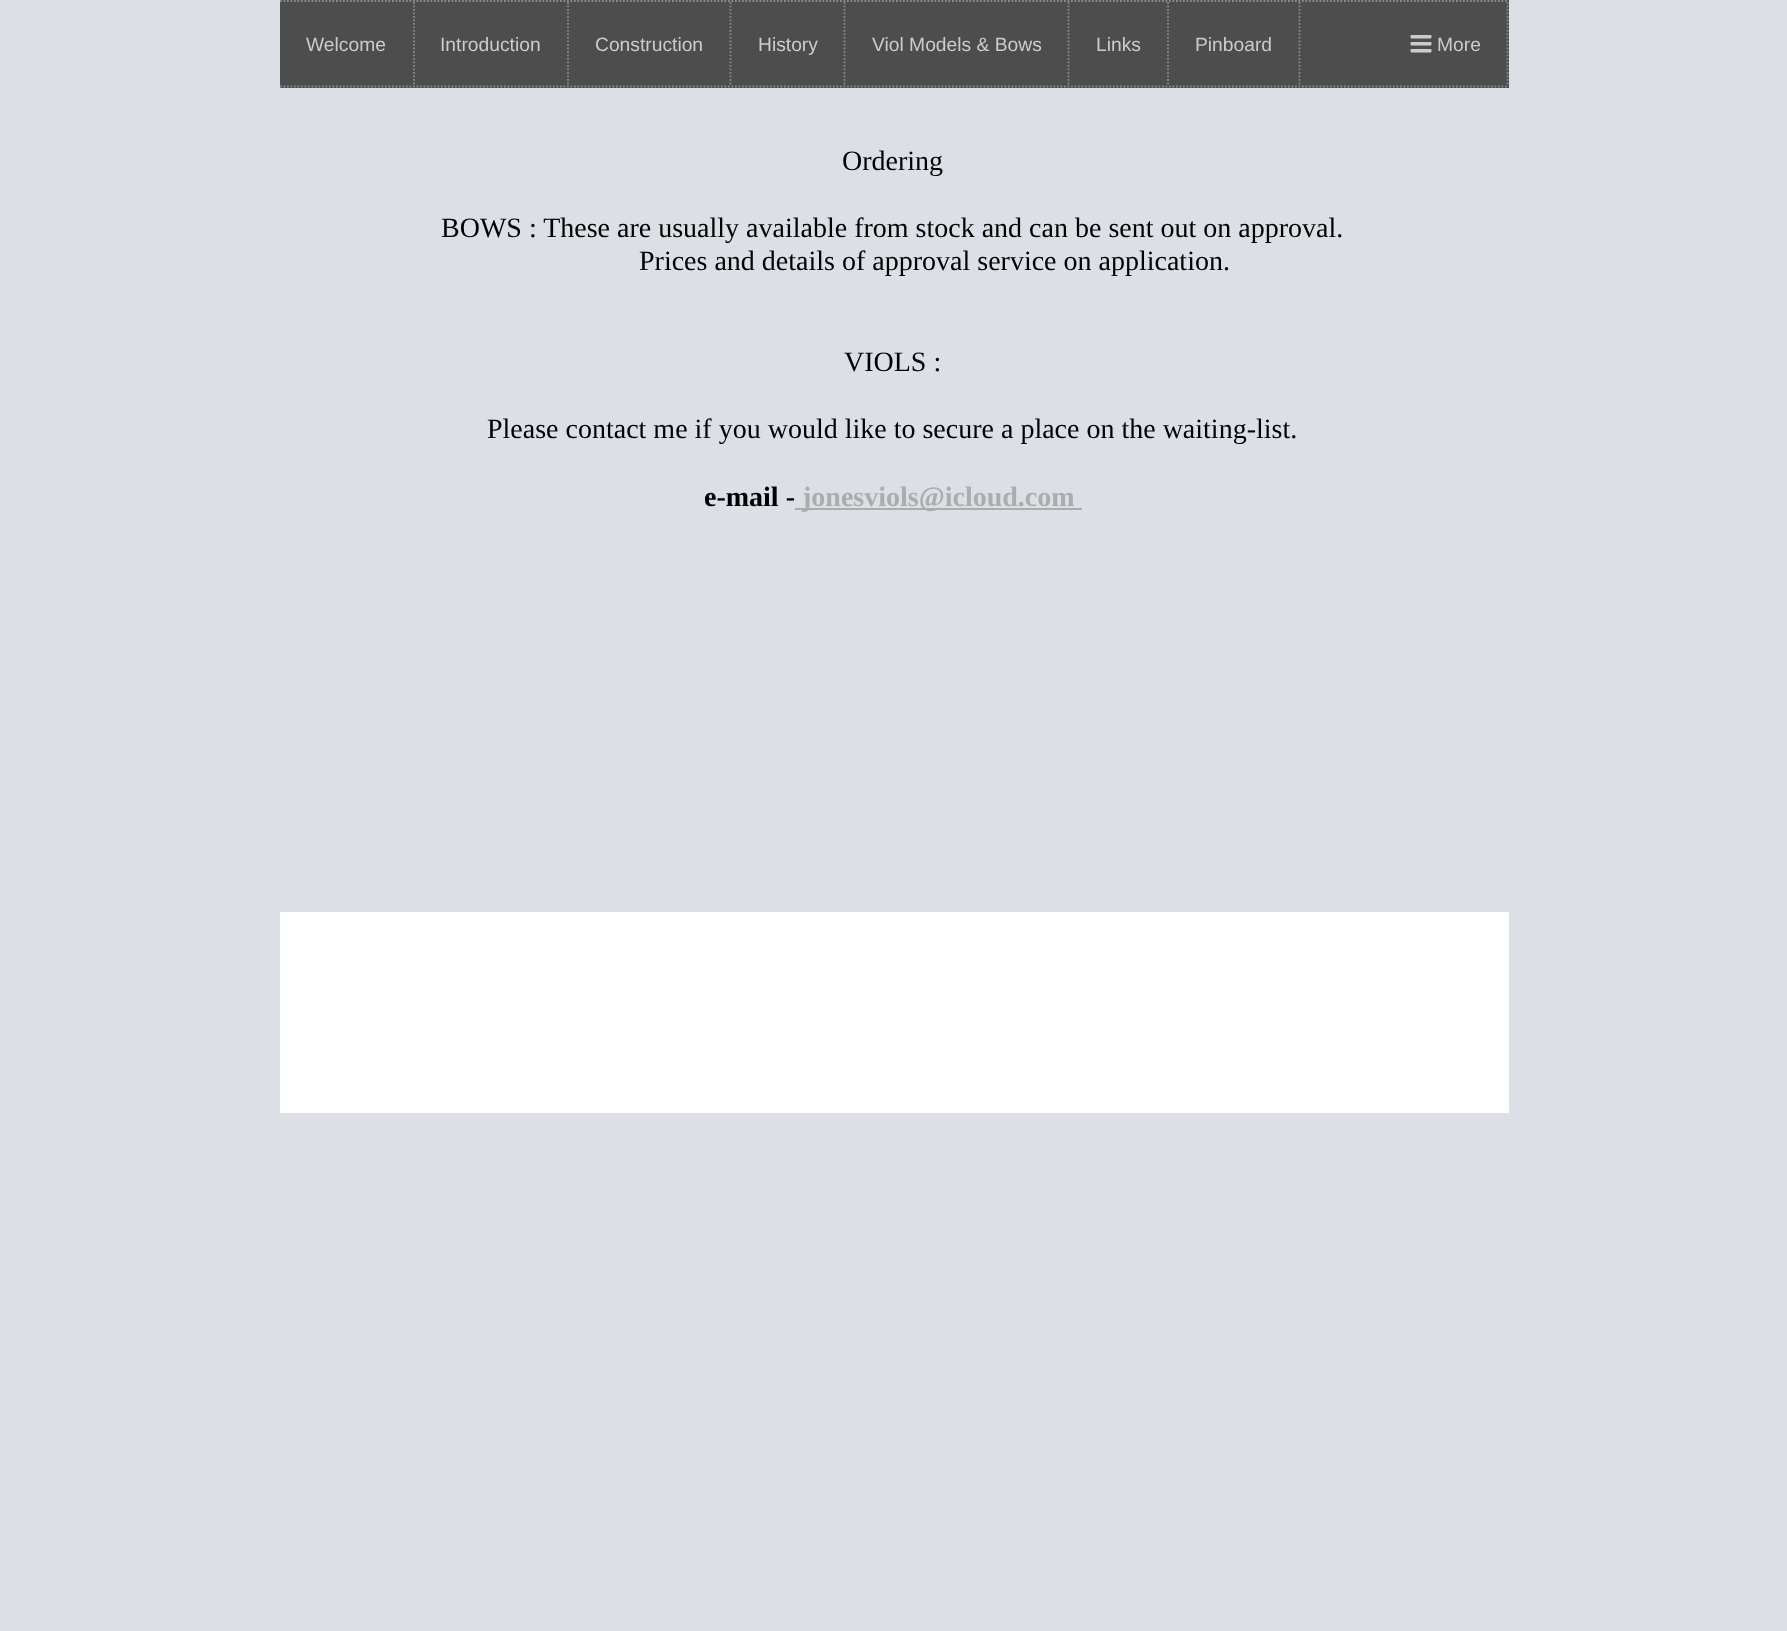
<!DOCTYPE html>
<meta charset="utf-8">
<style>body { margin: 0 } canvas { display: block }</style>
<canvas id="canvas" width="1787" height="1631"></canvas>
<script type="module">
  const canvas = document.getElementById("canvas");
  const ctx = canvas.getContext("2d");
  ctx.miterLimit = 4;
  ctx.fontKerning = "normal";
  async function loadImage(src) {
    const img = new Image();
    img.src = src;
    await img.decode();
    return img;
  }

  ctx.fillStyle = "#dcdfe5";
  ctx.fillRect(0, 0, 1787, 1631);
  ctx.fillStyle = "#4d4d4d";
  ctx.fillRect(280, 0, 1229, 88);
  ctx.beginPath();
  ctx.moveTo(280, 1);
  ctx.lineTo(1508.5, 1);
  ctx.strokeStyle = "#8a8a8a";
  ctx.lineWidth = 1.8;
  ctx.setLineDash([1.75, 1.75]);
  ctx.stroke();
  ctx.beginPath();
  ctx.moveTo(280, 86.5);
  ctx.lineTo(1508.5, 86.5);
  ctx.stroke();
  ctx.beginPath();
  ctx.moveTo(414, 2);
  ctx.lineTo(414, 86);
  ctx.stroke();
  ctx.font = "19.25px Liberation Sans";
  ctx.fillStyle = "#cccccc";
  ctx.fillText("Welcome", 306, 51);
  ctx.beginPath();
  ctx.moveTo(568, 2);
  ctx.lineTo(568, 86);
  ctx.stroke();
  ctx.fillText("Introduction", 440, 51);
  ctx.beginPath();
  ctx.moveTo(730.5, 2);
  ctx.lineTo(730.5, 86);
  ctx.stroke();
  ctx.fillText("Construction", 595, 51);
  ctx.beginPath();
  ctx.moveTo(844.5, 2);
  ctx.lineTo(844.5, 86);
  ctx.stroke();
  ctx.fillText("History", 758, 51);
  ctx.beginPath();
  ctx.moveTo(1068.5, 2);
  ctx.lineTo(1068.5, 86);
  ctx.stroke();
  ctx.fillText("Viol Models & Bows", 872, 51);
  ctx.beginPath();
  ctx.moveTo(1168, 2);
  ctx.lineTo(1168, 86);
  ctx.stroke();
  ctx.fillText("Links", 1096, 51);
  ctx.beginPath();
  ctx.moveTo(1299.5, 2);
  ctx.lineTo(1299.5, 86);
  ctx.stroke();
  ctx.fillText("Pinboard", 1195, 51);
  ctx.beginPath();
  ctx.moveTo(1507.5, 2);
  ctx.lineTo(1507.5, 86);
  ctx.stroke();
  ctx.drawImage(await loadImage("img1.png"), 1410, 35, 22, 18);
  ctx.fillText("More", 1437, 51);
  ctx.font = "28px Liberation Serif";
  ctx.fillStyle = "#000000";
  ctx.fillText("Ordering", 842, 170);
  ctx.fillText("BOWS : These are usually available from stock and can be sent out on approval.", 441, 237);
  ctx.fillText("Prices and details of approval service on application.", 639, 270);
  ctx.fillText("VIOLS :", 844, 371);
  ctx.fillText("Please contact me if you would like to secure a place on the waiting-list.", 487, 438);
  ctx.font = "bold 28px Liberation Serif";
  ctx.fillText("e-mail -", 704, 506);
  ctx.fillStyle = "#acacaa";
  ctx.fillRect(795, 508, 287, 2);
  ctx.fillText("jonesviols@icloud.com", 802, 506);
  ctx.fillStyle = "#ffffff";
  ctx.fillRect(280, 912, 1229, 201);
</script>
